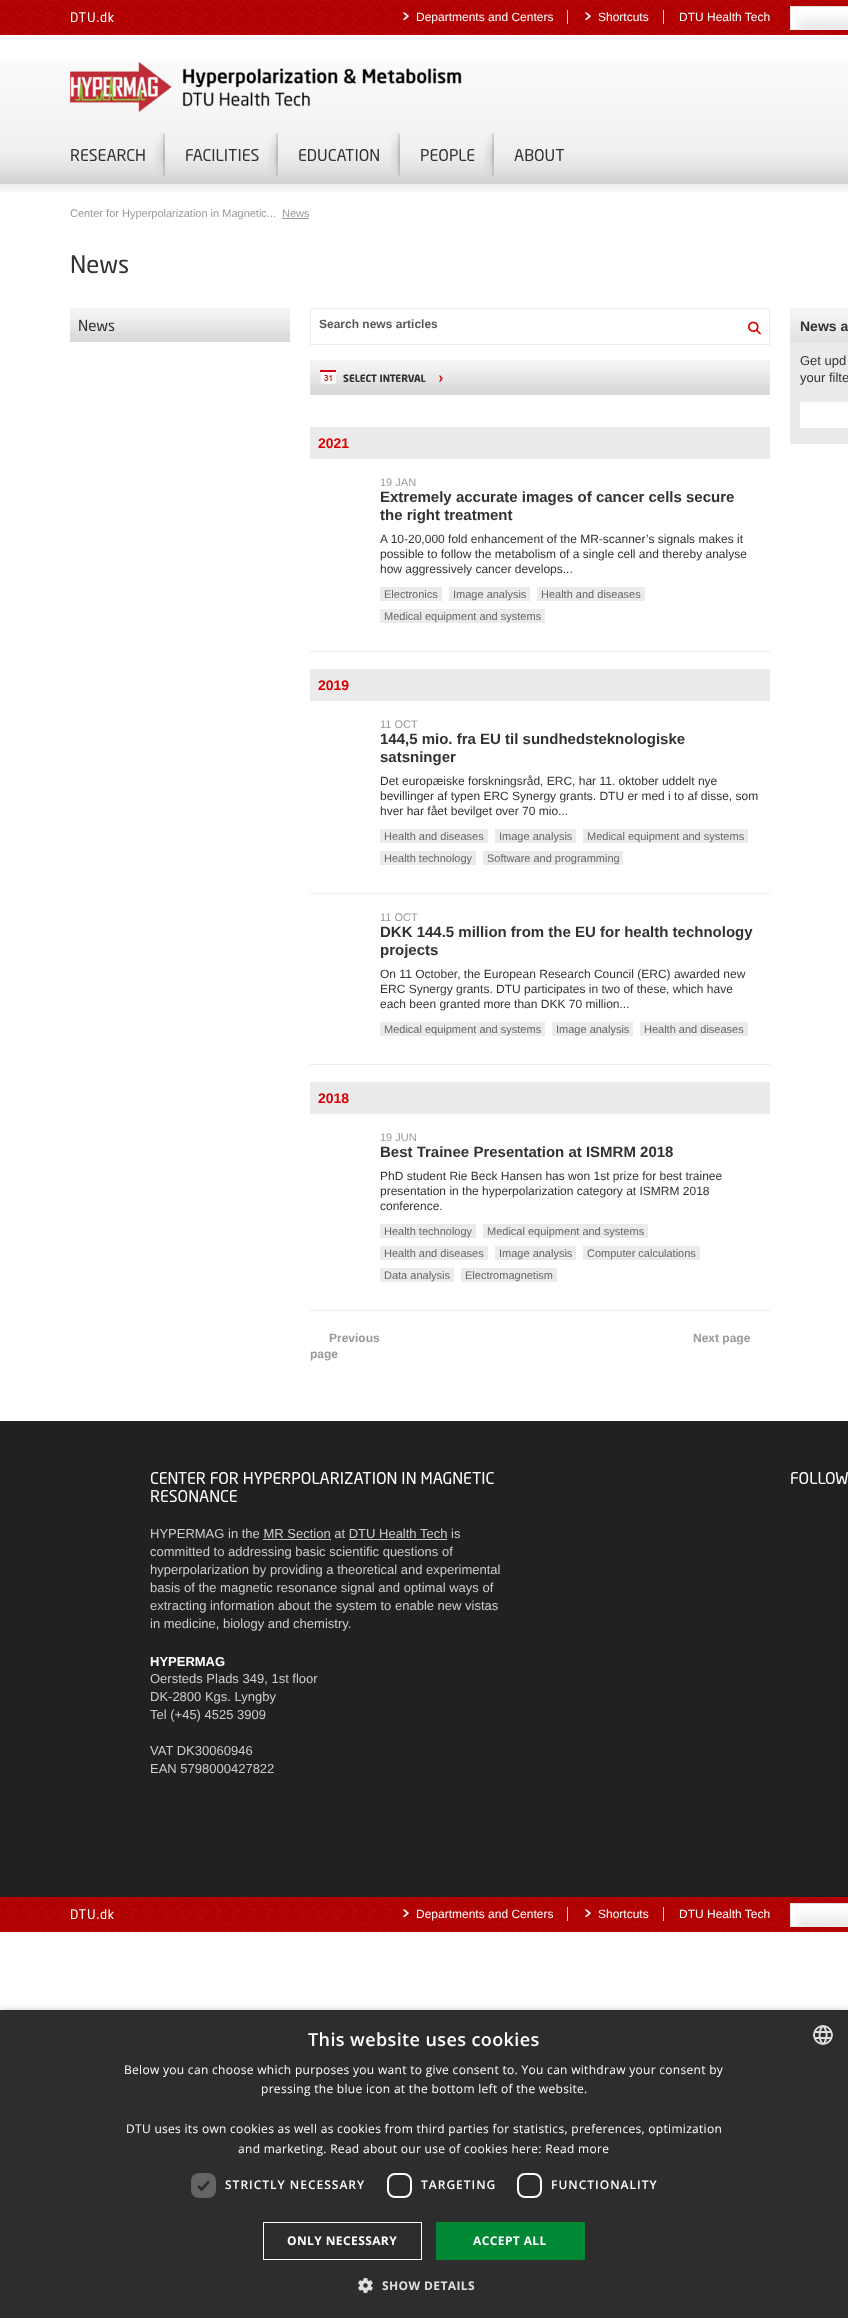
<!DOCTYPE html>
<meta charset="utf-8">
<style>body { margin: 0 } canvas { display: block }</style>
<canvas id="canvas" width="848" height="2318"></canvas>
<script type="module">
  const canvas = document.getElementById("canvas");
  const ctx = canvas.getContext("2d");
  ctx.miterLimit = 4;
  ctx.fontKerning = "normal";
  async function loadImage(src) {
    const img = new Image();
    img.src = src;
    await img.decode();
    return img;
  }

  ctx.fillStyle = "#ffffff";
  ctx.fillRect(0, 0, 848, 2318);
  ctx.drawImage(await loadImage("img1.png"), 0, 0, 848, 35);
  ctx.letterSpacing = "0.75px";
  ctx.font = "13px 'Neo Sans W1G'";
  ctx.fillText("DTU.dk", 70, 22);
  ctx.drawImage(await loadImage("img2.png"), 402, 12, 7, 8);
  ctx.letterSpacing = "0px";
  ctx.font = "12px Liberation Sans";
  ctx.fillText("Departments and Centers", 416, 21);
  ctx.fillStyle = "#d2d3d5";
  ctx.fillRect(567, 10, 1, 14);
  ctx.drawImage(await loadImage("img3.png"), 584, 12, 7, 8);
  ctx.fillStyle = "#ffffff";
  ctx.fillText("Shortcuts", 598, 21);
  ctx.fillStyle = "#d2d3d5";
  ctx.fillRect(663, 10, 1, 14);
  ctx.fillStyle = "#ffffff";
  ctx.fillText("DTU Health Tech", 679, 21);
  ctx.drawImage(await loadImage("img4.png"), 790, 6, 58, 24);
  ctx.drawImage(await loadImage("img5.png"), 0, 63, 848, 121);
  ctx.drawImage(await loadImage("img6.png"), 70, 62, 392, 50);
  ctx.drawImage(await loadImage("img7.png"), 155, 133, 10, 43);
  ctx.font = "16px 'Neo Sans W1G'";
  ctx.fillStyle = "#323232";
  ctx.fillText("RESEARCH", 70, 161);
  ctx.drawImage(await loadImage("img8.png"), 268, 133, 10, 43);
  ctx.fillText("FACILITIES", 185, 161);
  ctx.drawImage(await loadImage("img8.png"), 390, 133, 10, 43);
  ctx.fillText("EDUCATION", 298, 161);
  ctx.drawImage(await loadImage("img7.png"), 484, 133, 10, 43);
  ctx.fillText("PEOPLE", 420, 161);
  ctx.fillText("ABOUT", 514, 161);
  ctx.drawImage(await loadImage("img9.png"), 0, 184, 848, 8);
  ctx.font = "11px Liberation Sans";
  ctx.fillStyle = "#999999";
  ctx.fillText("Center for Hyperpolarization in Magnetic...", 70, 217);
  ctx.fillText("News", 282, 217);
  ctx.fillRect(282, 218, 27, 1);
  ctx.font = "24px 'Neo Sans W1G'";
  ctx.fillStyle = "#323232";
  ctx.fillText("News", 70, 273);
  ctx.fillStyle = "#dadada";
  ctx.fillRect(70, 334, 220, 8);
  ctx.drawImage(await loadImage("img10.png"), 70, 308, 220, 26);
  ctx.font = "15px 'Neo Sans W1G'";
  ctx.fillStyle = "#323232";
  ctx.fillText("News", 78, 331);
  ctx.strokeStyle = "#ebebeb";
  ctx.strokeRect(310.5, 308.5, 459, 36);
  ctx.font = "bold 12px Liberation Sans";
  ctx.fillStyle = "#595959";
  ctx.fillText("Search news articles", 319, 328);
  ctx.drawImage(await loadImage("img11.png"), 748, 321, 13, 14);
  ctx.drawImage(await loadImage("img12.png"), 310, 360, 460, 35);
  ctx.drawImage(await loadImage("img13.png"), 439, 375, 4, 7);
  ctx.drawImage(await loadImage("img14.png"), 320, 370, 16, 14);
  ctx.font = "bold 10px 'Neo Sans W1G'";
  ctx.fillStyle = "#323232";
  ctx.fillText("SELECT INTERVAL", 343, 382);
  ctx.fillStyle = "#ebebeb";
  ctx.fillRect(310, 427, 460, 32);
  ctx.font = "bold 14px Liberation Sans";
  ctx.fillStyle = "#dc0000";
  ctx.fillText("2021", 318, 448);
  ctx.fillStyle = "#ebebeb";
  ctx.fillRect(310, 651, 460, 1);
  ctx.font = "11px Liberation Sans";
  ctx.fillStyle = "#999999";
  ctx.fillText("19 JAN", 380, 486);
  ctx.font = "bold 15px Liberation Sans";
  ctx.fillStyle = "#323232";
  ctx.fillText("Extremely accurate images of cancer cells secure", 380, 502);
  ctx.fillText("the right treatment", 380, 520);
  ctx.font = "12px Liberation Sans";
  ctx.fillText("A 10-20,000 fold enhancement of the MR-scanner’s signals makes it", 380, 543);
  ctx.fillText("possible to follow the metabolism of a single cell and thereby analyse", 380, 558);
  ctx.fillText("how aggressively cancer develops...", 380, 573);
  ctx.fillStyle = "#ebebeb";
  ctx.fillRect(380, 587, 62, 14);
  ctx.font = "11px Liberation Sans";
  ctx.fillStyle = "#666666";
  ctx.fillText("Electronics", 384, 598);
  ctx.fillStyle = "#ebebeb";
  ctx.fillRect(449, 587, 81, 14);
  ctx.fillStyle = "#666666";
  ctx.fillText("Image analysis", 453, 598);
  ctx.fillStyle = "#ebebeb";
  ctx.fillRect(537, 587, 108, 14);
  ctx.fillStyle = "#666666";
  ctx.fillText("Health and diseases", 541, 598);
  ctx.fillStyle = "#ebebeb";
  ctx.fillRect(380, 609, 165, 14);
  ctx.fillStyle = "#666666";
  ctx.fillText("Medical equipment and systems", 384, 620);
  ctx.fillStyle = "#ebebeb";
  ctx.fillRect(310, 669, 460, 32);
  ctx.font = "bold 14px Liberation Sans";
  ctx.fillStyle = "#dc0000";
  ctx.fillText("2019", 318, 690);
  ctx.fillStyle = "#ebebeb";
  ctx.fillRect(310, 893, 460, 1);
  ctx.font = "11px Liberation Sans";
  ctx.fillStyle = "#999999";
  ctx.fillText("11 OCT", 380, 728);
  ctx.font = "bold 15px Liberation Sans";
  ctx.fillStyle = "#323232";
  ctx.fillText("144,5 mio. fra EU til sundhedsteknologiske", 380, 744);
  ctx.fillText("satsninger", 380, 762);
  ctx.font = "12px Liberation Sans";
  ctx.fillText("Det europæiske forskningsråd, ERC, har 11. oktober uddelt nye", 380, 785);
  ctx.fillText("bevillinger af typen ERC Synergy grants. DTU er med i to af disse, som", 380, 800);
  ctx.fillText("hver har fået bevilget over 70 mio...", 380, 815);
  ctx.fillStyle = "#ebebeb";
  ctx.fillRect(380, 829, 108, 14);
  ctx.font = "11px Liberation Sans";
  ctx.fillStyle = "#666666";
  ctx.fillText("Health and diseases", 384, 840);
  ctx.fillStyle = "#ebebeb";
  ctx.fillRect(495, 829, 81, 14);
  ctx.fillStyle = "#666666";
  ctx.fillText("Image analysis", 499, 840);
  ctx.fillStyle = "#ebebeb";
  ctx.fillRect(583, 829, 165, 14);
  ctx.fillStyle = "#666666";
  ctx.fillText("Medical equipment and systems", 587, 840);
  ctx.fillStyle = "#ebebeb";
  ctx.fillRect(380, 851, 96, 14);
  ctx.fillStyle = "#666666";
  ctx.fillText("Health technology", 384, 862);
  ctx.fillStyle = "#ebebeb";
  ctx.fillRect(483, 851, 140, 14);
  ctx.fillStyle = "#666666";
  ctx.fillText("Software and programming", 487, 862);
  ctx.fillStyle = "#ebebeb";
  ctx.fillRect(310, 1064, 460, 1);
  ctx.fillStyle = "#999999";
  ctx.fillText("11 OCT", 380, 921);
  ctx.font = "bold 15px Liberation Sans";
  ctx.fillStyle = "#323232";
  ctx.fillText("DKK 144.5 million from the EU for health technology", 380, 937);
  ctx.fillText("projects", 380, 955);
  ctx.font = "12px Liberation Sans";
  ctx.fillText("On 11 October, the European Research Council (ERC) awarded new", 380, 978);
  ctx.fillText("ERC Synergy grants. DTU participates in two of these, which have", 380, 993);
  ctx.fillText("each been granted more than DKK 70 million...", 380, 1008);
  ctx.fillStyle = "#ebebeb";
  ctx.fillRect(380, 1022, 165, 14);
  ctx.font = "11px Liberation Sans";
  ctx.fillStyle = "#666666";
  ctx.fillText("Medical equipment and systems", 384, 1033);
  ctx.fillStyle = "#ebebeb";
  ctx.fillRect(552, 1022, 81, 14);
  ctx.fillStyle = "#666666";
  ctx.fillText("Image analysis", 556, 1033);
  ctx.fillStyle = "#ebebeb";
  ctx.fillRect(640, 1022, 108, 14);
  ctx.fillStyle = "#666666";
  ctx.fillText("Health and diseases", 644, 1033);
  ctx.fillStyle = "#ebebeb";
  ctx.fillRect(310, 1082, 460, 32);
  ctx.font = "bold 14px Liberation Sans";
  ctx.fillStyle = "#dc0000";
  ctx.fillText("2018", 318, 1103);
  ctx.fillStyle = "#ebebeb";
  ctx.fillRect(310, 1310, 460, 1);
  ctx.font = "11px Liberation Sans";
  ctx.fillStyle = "#999999";
  ctx.fillText("19 JUN", 380, 1141);
  ctx.font = "bold 15px Liberation Sans";
  ctx.fillStyle = "#323232";
  ctx.fillText("Best Trainee Presentation at ISMRM 2018", 380, 1157);
  ctx.font = "12px Liberation Sans";
  ctx.fillText("PhD student Rie Beck Hansen has won 1st prize for best trainee", 380, 1180);
  ctx.fillText("presentation in the hyperpolarization category at ISMRM 2018", 380, 1195);
  ctx.fillText("conference.", 380, 1210);
  ctx.fillStyle = "#ebebeb";
  ctx.fillRect(380, 1224, 96, 14);
  ctx.font = "11px Liberation Sans";
  ctx.fillStyle = "#666666";
  ctx.fillText("Health technology", 384, 1235);
  ctx.fillStyle = "#ebebeb";
  ctx.fillRect(483, 1224, 165, 14);
  ctx.fillStyle = "#666666";
  ctx.fillText("Medical equipment and systems", 487, 1235);
  ctx.fillStyle = "#ebebeb";
  ctx.fillRect(380, 1246, 108, 14);
  ctx.fillStyle = "#666666";
  ctx.fillText("Health and diseases", 384, 1257);
  ctx.fillStyle = "#ebebeb";
  ctx.fillRect(495, 1246, 81, 14);
  ctx.fillStyle = "#666666";
  ctx.fillText("Image analysis", 499, 1257);
  ctx.fillStyle = "#ebebeb";
  ctx.fillRect(583, 1246, 117, 14);
  ctx.fillStyle = "#666666";
  ctx.fillText("Computer calculations", 587, 1257);
  ctx.fillStyle = "#ebebeb";
  ctx.fillRect(380, 1268, 74, 14);
  ctx.fillStyle = "#666666";
  ctx.fillText("Data analysis", 384, 1279);
  ctx.fillStyle = "#ebebeb";
  ctx.fillRect(461, 1268, 96, 14);
  ctx.fillStyle = "#666666";
  ctx.fillText("Electromagnetism", 465, 1279);
  ctx.font = "bold 12px Liberation Sans";
  ctx.fillStyle = "#999999";
  ctx.fillText("Previous", 329, 1342);
  ctx.fillText("page", 310, 1358);
  ctx.fillText("Next page", 693, 1342);
  ctx.fillStyle = "#ebebeb";
  ctx.fillRect(790, 342, 58, 102);
  ctx.drawImage(await loadImage("img15.png"), 790, 308, 58, 34);
  ctx.font = "bold 14px Liberation Sans";
  ctx.fillStyle = "#323232";
  ctx.fillText("News a", 800, 331);
  ctx.font = "13px Liberation Sans";
  ctx.fillText("Get upd", 800, 365);
  ctx.fillText("your filte", 800, 382);
  ctx.fillStyle = "#ffffff";
  ctx.fillRect(800, 402, 48, 26);
  ctx.fillStyle = "#212121";
  ctx.fillRect(0, 1421, 848, 476);
  ctx.font = "16px 'Neo Sans W1G'";
  ctx.fillStyle = "#ffffff";
  ctx.fillText("CENTER FOR HYPERPOLARIZATION IN MAGNETIC", 150, 1484);
  ctx.fillText("RESONANCE", 150, 1502);
  ctx.font = "13px Liberation Sans";
  ctx.fillStyle = "#cccccc";
  ctx.fillText("HYPERMAG in the MR Section at DTU Health Tech is", 150, 1538);
  ctx.fillRect(263, 1539, 68, 1);
  ctx.fillRect(349, 1539, 98, 1);
  ctx.fillText("committed to addressing basic scientific questions of", 150, 1556);
  ctx.fillText("hyperpolarization by providing a theoretical and experimental", 150, 1574);
  ctx.fillText("basis of the magnetic resonance signal and optimal ways of", 150, 1592);
  ctx.fillText("extracting information about the system to enable new vistas", 150, 1610);
  ctx.fillText("in medicine, biology and chemistry.", 150, 1628);
  ctx.font = "bold 13px Liberation Sans";
  ctx.fillStyle = "#ffffff";
  ctx.fillText("HYPERMAG", 150, 1666);
  ctx.font = "13px Liberation Sans";
  ctx.fillStyle = "#cccccc";
  ctx.fillText("Oersteds Plads 349, 1st floor", 150, 1683);
  ctx.fillText("DK-2800 Kgs. Lyngby", 150, 1701);
  ctx.fillText("Tel (+45) 4525 3909", 150, 1719);
  ctx.fillText("VAT DK30060946", 150, 1755);
  ctx.fillText("EAN 5798000427822", 150, 1773);
  ctx.font = "16px 'Neo Sans W1G'";
  ctx.fillStyle = "#ffffff";
  ctx.fillText("FOLLOW", 790, 1484);
  ctx.drawImage(await loadImage("img1.png"), 0, 1897, 848, 35);
  ctx.letterSpacing = "0.75px";
  ctx.font = "13px 'Neo Sans W1G'";
  ctx.fillText("DTU.dk", 70, 1919);
  ctx.drawImage(await loadImage("img2.png"), 402, 1909, 7, 8);
  ctx.letterSpacing = "0px";
  ctx.font = "12px Liberation Sans";
  ctx.fillText("Departments and Centers", 416, 1918);
  ctx.fillStyle = "#d2d3d5";
  ctx.fillRect(567, 1907, 1, 14);
  ctx.drawImage(await loadImage("img3.png"), 584, 1909, 7, 8);
  ctx.fillStyle = "#ffffff";
  ctx.fillText("Shortcuts", 598, 1918);
  ctx.fillStyle = "#d2d3d5";
  ctx.fillRect(663, 1907, 1, 14);
  ctx.fillStyle = "#ffffff";
  ctx.fillText("DTU Health Tech", 679, 1918);
  ctx.drawImage(await loadImage("img4.png"), 790, 1903, 58, 24);
  ctx.fillStyle = "rgba(0, 0, 0, 0.35)";
  ctx.filter = "blur(4px)";
  ctx.beginPath();
  ctx.rect(1, 2012, 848, 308);
  ctx.fill();
  ctx.filter = "none";
  ctx.fillStyle = "#2d2d2d";
  ctx.fillRect(0, 2010, 848, 308);
  ctx.letterSpacing = "0.4px";
  ctx.font = "600 18px Open Sans";
  ctx.fillStyle = "#ffffff";
  ctx.fillText("This website uses cookies", 308, 2046);
  ctx.drawImage(await loadImage("img16.png"), 813, 2025, 20, 20);
  ctx.letterSpacing = "0.3px";
  ctx.font = "12px Open Sans";
  ctx.fillText("Below you can choose which purposes you want to give consent to. You can withdraw your consent by", 124, 2074);
  ctx.fillText("pressing the blue icon at the bottom left of the website.", 261, 2093);
  ctx.fillText("DTU uses its own cookies as well as cookies from third parties for statistics, preferences, optimization", 126, 2133);
  ctx.fillText("and marketing. Read about our use of cookies here: Read more", 238, 2153);
  ctx.fillStyle = "#646464";
  ctx.beginPath();
  ctx.roundRect(191, 2173, 25, 25, 8);
  ctx.fill();
  ctx.beginPath();
  ctx.moveTo(198, 2186);
  ctx.lineTo(201.5, 2189.5);
  ctx.lineTo(209, 2181.5);
  ctx.strokeStyle = "#2d2d2d";
  ctx.lineWidth = 2.6;
  ctx.stroke();
  ctx.letterSpacing = "1px";
  ctx.font = "600 12px Open Sans";
  ctx.fillStyle = "#ffffff";
  ctx.fillText("STRICTLY NECESSARY", 225, 2189);
  ctx.beginPath();
  ctx.roundRect(388, 2174, 23, 23, 7);
  ctx.strokeStyle = "#ffffff";
  ctx.lineWidth = 2;
  ctx.stroke();
  ctx.fillText("TARGETING", 421, 2189);
  ctx.beginPath();
  ctx.roundRect(518, 2174, 23, 23, 7);
  ctx.stroke();
  ctx.fillText("FUNCTIONALITY", 551, 2189);
  ctx.lineWidth = 1;
  ctx.strokeRect(263.5, 2222.5, 158, 37);
  ctx.letterSpacing = "0.4px";
  ctx.font = "bold 12px Open Sans";
  ctx.fillText("ONLY NECESSARY", 287, 2245);
  ctx.fillStyle = "#008835";
  ctx.fillRect(436, 2222, 149, 38);
  ctx.fillStyle = "#ffffff";
  ctx.fillText("ACCEPT ALL", 473, 2245);
  ctx.drawImage(await loadImage("img17.png"), 358, 2278, 15, 15);
  ctx.fillStyle = "#e0e0e0";
  ctx.fillText("SHOW DETAILS", 382, 2290);
</script>
